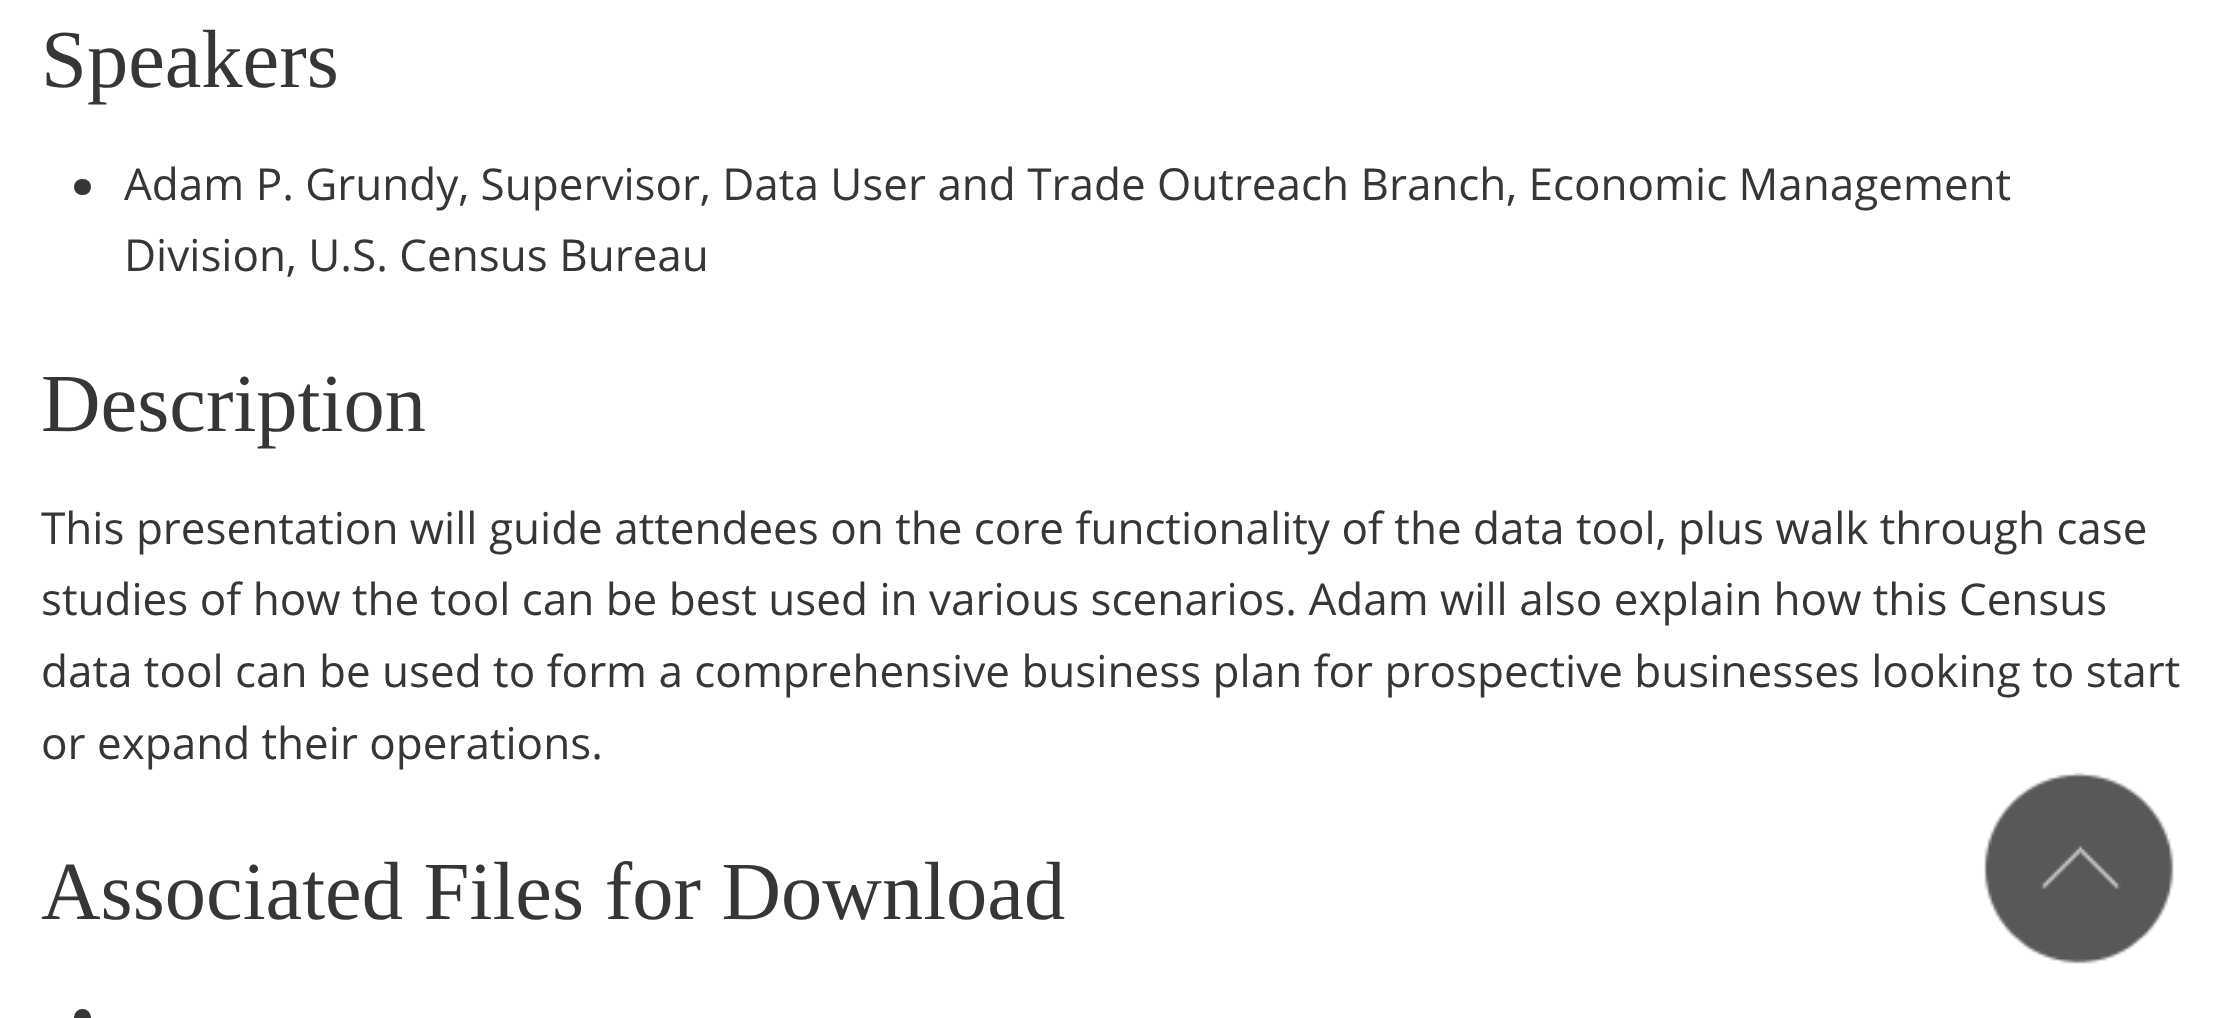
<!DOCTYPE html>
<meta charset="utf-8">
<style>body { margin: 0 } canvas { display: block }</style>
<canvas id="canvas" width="2228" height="1018"></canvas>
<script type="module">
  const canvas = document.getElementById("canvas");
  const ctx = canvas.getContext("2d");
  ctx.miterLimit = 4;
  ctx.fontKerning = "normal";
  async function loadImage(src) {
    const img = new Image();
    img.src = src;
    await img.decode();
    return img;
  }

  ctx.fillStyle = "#ffffff";
  ctx.fillRect(0, 0, 2228, 1018);
  ctx.font = "82.5px Liberation Serif";
  ctx.fillStyle = "#363636";
  ctx.fillText("Speakers", 41, 87);
  ctx.beginPath();
  ctx.roundRect(74, 179, 17, 16, 8);
  ctx.fill();
  ctx.font = "44px Open Sans";
  ctx.fillText("Adam P. Grundy, Supervisor, Data User and Trade Outreach Branch, Economic Management", 124, 200);
  ctx.fillText("Division, U.S. Census Bureau", 124, 271);
  ctx.font = "82.5px Liberation Serif";
  ctx.fillText("Description", 41, 431);
  ctx.font = "44px Open Sans";
  ctx.fillText("This presentation will guide attendees on the core functionality of the data tool, plus walk through case", 41, 544);
  ctx.fillText("studies of how the tool can be best used in various scenarios. Adam will also explain how this Census", 41, 615);
  ctx.fillText("data tool can be used to form a comprehensive business plan for prospective businesses looking to start", 41, 687);
  ctx.fillText("or expand their operations.", 41, 759);
  ctx.font = "82.5px Liberation Serif";
  ctx.fillText("Associated Files for Download", 41, 919);
  ctx.beginPath();
  ctx.arc(82.5, 1017.5, 8.5, 0, Math.PI * 2);
  ctx.fill();
  ctx.drawImage(await loadImage("img1.png"), 1983, 772, 191, 192);
</script>
